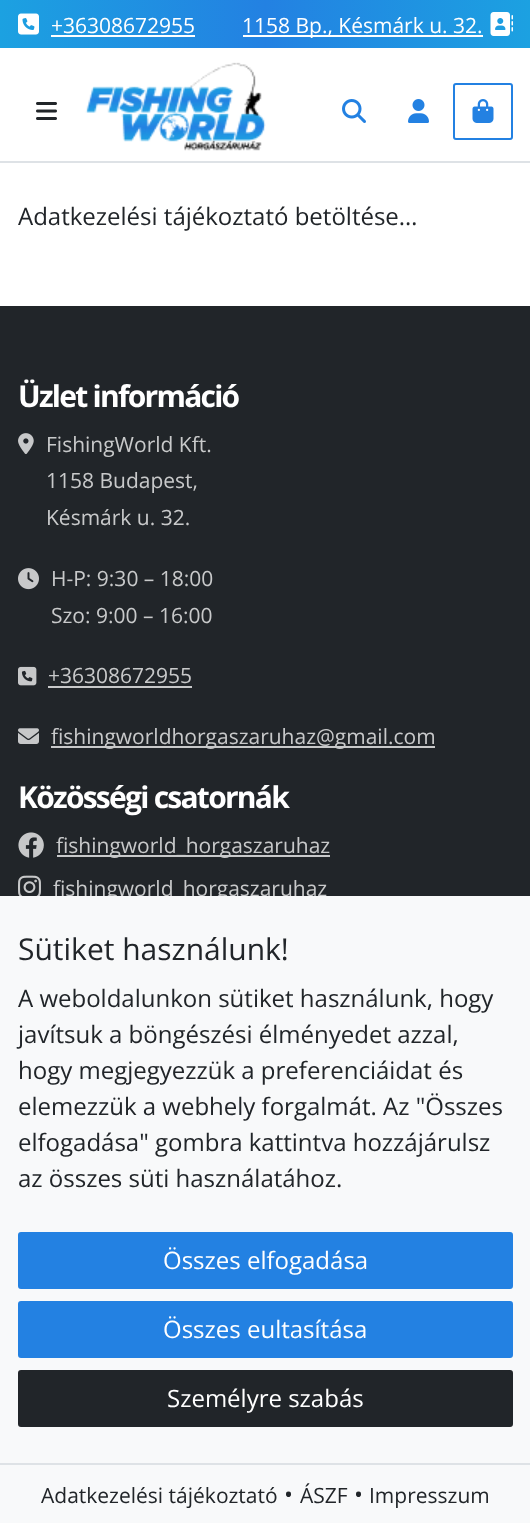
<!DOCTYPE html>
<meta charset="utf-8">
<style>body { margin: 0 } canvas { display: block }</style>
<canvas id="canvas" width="530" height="1523"></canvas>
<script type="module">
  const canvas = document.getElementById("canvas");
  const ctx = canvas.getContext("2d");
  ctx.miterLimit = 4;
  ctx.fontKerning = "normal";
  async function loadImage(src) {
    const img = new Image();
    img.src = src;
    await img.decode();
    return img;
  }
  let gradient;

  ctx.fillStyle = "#ffffff";
  ctx.fillRect(0, 0, 530, 1523);
  gradient = ctx.createLinearGradient(0, 24, 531, 24);
  gradient.addColorStop(0, "#1ca1e1");
  gradient.addColorStop(0.5, "#2381e2");
  gradient.addColorStop(1, "#1ca1e1");
  ctx.fillStyle = gradient;
  ctx.fillRect(0, 0, 530, 48);
  ctx.drawImage(await loadImage("img1.png"), 18, 13, 21, 22);
  ctx.font = "21px Open Sans";
  ctx.fillStyle = "#ffffff";
  ctx.fillText("+36308672955", 51, 33);
  ctx.fillRect(51, 35, 144, 2);
  ctx.fillRect(243, 35, 240, 2);
  ctx.fillText("1158 Bp., Késmárk u. 32.", 242, 33);
  ctx.drawImage(await loadImage("img2.png"), 490, 12, 23, 24);
  ctx.fillStyle = "#dee2e6";
  ctx.fillRect(0, 161, 530, 2);
  ctx.drawImage(await loadImage("img3.png"), 36, 102, 21, 18);
  ctx.drawImage(await loadImage("img4.png"), 85, 62, 181, 89);
  ctx.drawImage(await loadImage("img5.png"), 342, 99, 24, 24);
  ctx.drawImage(await loadImage("img6.png"), 408, 99, 21, 24);
  ctx.beginPath();
  ctx.roundRect(454, 84, 58, 55, 2);
  ctx.strokeStyle = "#2381e2";
  ctx.lineWidth = 2;
  ctx.stroke();
  ctx.drawImage(await loadImage("img7.png"), 472, 99, 22, 24);
  ctx.font = "24px Open Sans";
  ctx.fillStyle = "#212529";
  ctx.fillText("Adatkezelési tájékoztató betöltése…", 18, 225);
  ctx.fillRect(0, 306, 530, 590);
  ctx.letterSpacing = "-1.75px";
  ctx.font = "bold 30px Open Sans";
  ctx.fillStyle = "#ffffff";
  ctx.fillText("Üzlet információ", 18, 407);
  ctx.drawImage(await loadImage("img8.png"), 18, 433, 16, 21);
  ctx.letterSpacing = "0px";
  ctx.font = "21px Open Sans";
  ctx.fillStyle = "#c8c9ca";
  ctx.fillText("FishingWorld Kft.", 46, 452);
  ctx.fillText("1158 Budapest,", 46, 488);
  ctx.fillText("Késmárk u. 32.", 46, 525);
  ctx.drawImage(await loadImage("img9.png"), 18, 568, 21, 22);
  ctx.fillText("H-P: 9:30 – 18:00", 51, 586);
  ctx.fillText("Szo: 9:00 – 16:00", 51, 623);
  ctx.drawImage(await loadImage("img10.png"), 18, 666, 19, 20);
  ctx.fillText("+36308672955", 48, 683);
  ctx.fillRect(48, 686, 144, 2);
  ctx.drawImage(await loadImage("img11.png"), 18, 728, 21, 16);
  ctx.fillRect(51, 746, 384, 2);
  ctx.fillText("fishingworldhorgaszaruhaz@gmail.com", 51, 744);
  ctx.letterSpacing = "-1.75px";
  ctx.font = "bold 30px Open Sans";
  ctx.fillStyle = "#ffffff";
  ctx.fillText("Közösségi csatornák", 18, 808);
  ctx.drawImage(await loadImage("img12.png"), 18, 832, 26, 26);
  ctx.fillStyle = "#c8c9ca";
  ctx.fillRect(57, 855, 273, 2);
  ctx.letterSpacing = "0px";
  ctx.font = "21px Open Sans";
  ctx.fillText("fishingworld_horgaszaruhaz", 56, 853);
  ctx.drawImage(await loadImage("img13.png"), 18, 875, 23, 21);
  ctx.fillText("fishingworld_horgaszaruhaz", 53, 896);
  ctx.fillStyle = "#f8f9fa";
  ctx.fillRect(0, 896, 530, 627);
  ctx.font = "30px Open Sans";
  ctx.fillStyle = "#212529";
  ctx.fillText("Sütiket használunk!", 18, 960);
  ctx.font = "24px Open Sans";
  ctx.fillText("A weboldalunkon sütiket használunk, hogy", 18, 1007);
  ctx.fillText("javítsuk a böngészési élményedet azzal,", 18, 1043);
  ctx.fillText("hogy megjegyezzük a preferenciáidat és", 18, 1079);
  ctx.fillText("elemezzük a webhely forgalmát. Az \"Összes", 18, 1115);
  ctx.fillText("elfogadása\" gombra kattintva hozzájárulsz", 18, 1151);
  ctx.fillText("az összes süti használatához.", 18, 1187);
  ctx.fillStyle = "#2381e2";
  ctx.beginPath();
  ctx.roundRect(19, 1233, 493, 55, 2);
  ctx.fill();
  ctx.stroke();
  ctx.fillStyle = "#ffffff";
  ctx.fillText("Összes elfogadása", 163, 1269);
  ctx.fillStyle = "#2381e2";
  ctx.beginPath();
  ctx.roundRect(19, 1302, 493, 55, 2);
  ctx.fill();
  ctx.stroke();
  ctx.fillStyle = "#ffffff";
  ctx.fillText("Összes eultasítása", 163, 1338);
  ctx.fillStyle = "#212529";
  ctx.beginPath();
  ctx.roundRect(19, 1371, 493, 55, 2);
  ctx.fill();
  ctx.strokeStyle = "#212529";
  ctx.stroke();
  ctx.fillStyle = "#ffffff";
  ctx.fillText("Személyre szabás", 167, 1407);
  ctx.fillStyle = "#dee2e6";
  ctx.fillRect(0, 1463, 530, 2);
  ctx.font = "21px Open Sans";
  ctx.fillStyle = "#212529";
  ctx.fillText("Adatkezelési tájékoztató", 41, 1503);
  ctx.font = "24px Open Sans";
  ctx.fillText("•", 284, 1503);
  ctx.font = "21px Open Sans";
  ctx.fillText("ÁSZF", 300, 1503);
  ctx.font = "24px Open Sans";
  ctx.fillText("•", 354, 1503);
  ctx.font = "21px Open Sans";
  ctx.fillText("Impresszum", 369, 1503);
</script>
